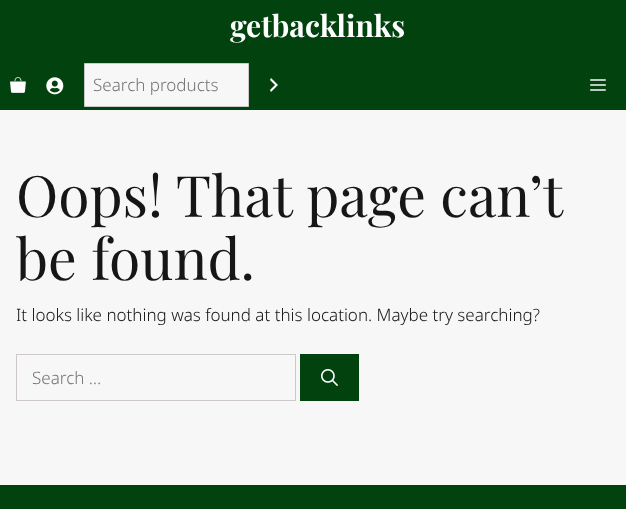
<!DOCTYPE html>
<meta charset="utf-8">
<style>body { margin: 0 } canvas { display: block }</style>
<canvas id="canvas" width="626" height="509"></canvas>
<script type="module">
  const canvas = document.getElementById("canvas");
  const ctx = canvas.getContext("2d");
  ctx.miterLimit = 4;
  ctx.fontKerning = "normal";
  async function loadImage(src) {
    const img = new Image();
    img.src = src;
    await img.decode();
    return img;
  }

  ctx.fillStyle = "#f7f7f7";
  ctx.fillRect(0, 0, 626, 509);
  ctx.fillStyle = "#02420e";
  ctx.fillRect(0, 0, 626, 110);
  ctx.font = "bold 30px Playfair Display";
  ctx.fillStyle = "#ffffff";
  ctx.fillText("getbacklinks", 230, 37);
  ctx.drawImage(await loadImage("img1.png"), 10, 77, 16, 16);
  ctx.drawImage(await loadImage("img2.png"), 46, 77, 18, 18);
  ctx.fillStyle = "#f7f7f7";
  ctx.beginPath();
  ctx.rect(84.5, 63.5, 164, 43);
  ctx.fill();
  ctx.strokeStyle = "#cec8c8";
  ctx.stroke();
  ctx.font = "300 17px Noto Sans";
  ctx.fillStyle = "#757575";
  ctx.fillText("Search products", 93, 91);
  ctx.drawImage(await loadImage("img3.png"), 270, 78, 8, 14);
  ctx.drawImage(await loadImage("img4.png"), 590, 79, 16, 12);
  ctx.font = "57px Playfair Display";
  ctx.fillStyle = "#161616";
  ctx.fillText("Oops! That page can’t", 16, 217);
  ctx.fillText("be found.", 16, 280);
  ctx.font = "300 17px Noto Sans";
  ctx.fillText("It looks like nothing was found at this location. Maybe try searching?", 16, 321);
  ctx.strokeRect(16.5, 354.5, 279, 46);
  ctx.fillStyle = "#757575";
  ctx.fillText("Search …", 32, 384);
  ctx.fillStyle = "#02420e";
  ctx.fillRect(300, 354, 59, 47);
  ctx.drawImage(await loadImage("img5.png"), 321, 369, 17, 17);
  ctx.fillRect(0, 485, 626, 24);
</script>
